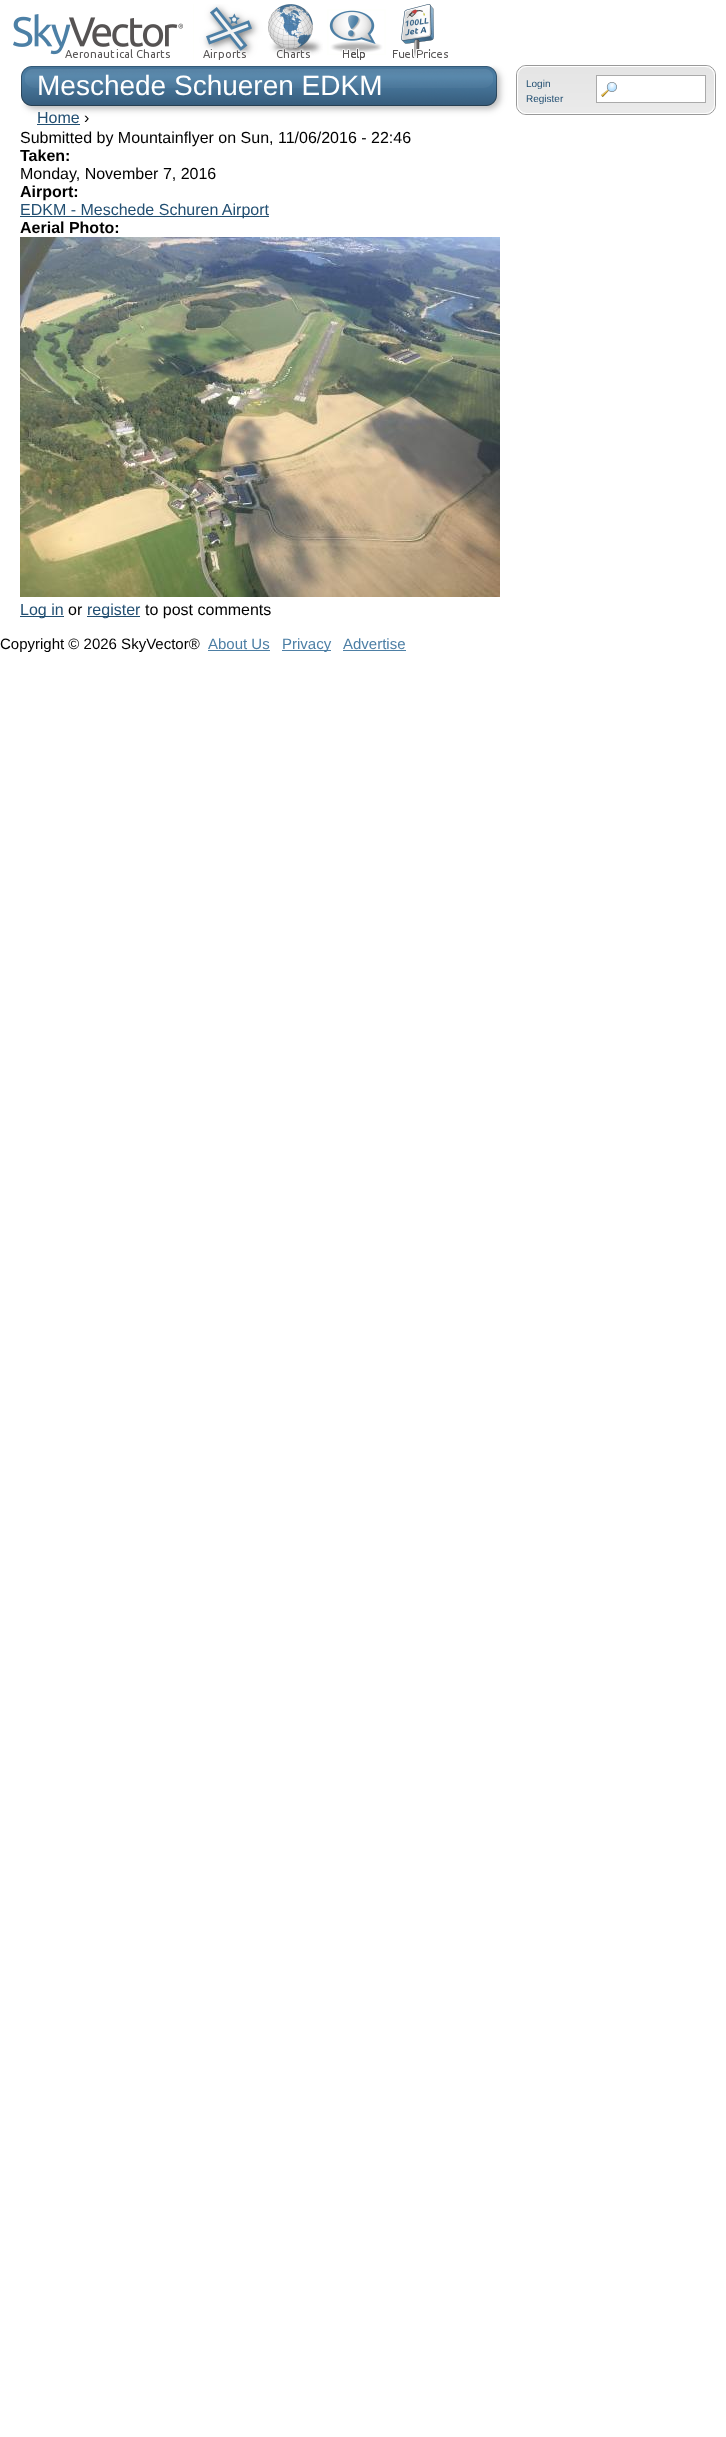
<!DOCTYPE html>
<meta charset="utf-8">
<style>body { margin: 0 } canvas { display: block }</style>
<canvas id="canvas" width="726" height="2437"></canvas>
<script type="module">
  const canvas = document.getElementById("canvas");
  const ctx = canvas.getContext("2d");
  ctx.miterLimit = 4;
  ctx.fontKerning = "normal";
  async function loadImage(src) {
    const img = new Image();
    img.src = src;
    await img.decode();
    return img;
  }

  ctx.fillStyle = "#ffffff";
  ctx.fillRect(0, 0, 726, 2437);
  ctx.drawImage(await loadImage("img1.png"), 13, 4, 435, 56);
  ctx.drawImage(await loadImage("img2.png"), 20, 64, 20, 53);
  ctx.drawImage(await loadImage("img3.png"), 40, 64, 468, 53);
  ctx.font = "28px Liberation Sans";
  ctx.fillText("Meschede Schueren EDKM", 37, 95);
  ctx.beginPath();
  ctx.roundRect(516.5, 65.5, 199, 49, 9.5);
  ctx.strokeStyle = "#999999";
  ctx.stroke();
  ctx.drawImage(await loadImage("img4.png"), 517, 67, 198, 47);
  ctx.beginPath();
  ctx.roundRect(517.5, 66.5, 197, 47, 9.5);
  ctx.strokeStyle = "#ffffff";
  ctx.stroke();
  ctx.font = "10px Liberation Sans";
  ctx.fillStyle = "#224f72";
  ctx.fillText("Login", 526, 87);
  ctx.fillStyle = "#ffffff";
  ctx.fillRect(597, 76, 108, 26);
  ctx.drawImage(await loadImage("img5.png"), 601, 82, 16, 15);
  ctx.strokeStyle = "#aaaaaa";
  ctx.strokeRect(596.5, 75.5, 109, 27);
  ctx.fillStyle = "#224f72";
  ctx.fillText("Register", 526, 102);
  ctx.font = "16px Liberation Sans";
  ctx.fillText("Home", 37, 123);
  ctx.fillRect(37, 124, 43, 1);
  ctx.fillStyle = "#000000";
  ctx.fillText("›", 84, 123);
  ctx.fillText("Submitted by Mountainflyer on Sun, 11/06/2016 - 22:46", 20, 143);
  ctx.font = "bold 16px Liberation Sans";
  ctx.fillText("Taken:", 20, 161);
  ctx.font = "16px Liberation Sans";
  ctx.fillText("Monday, November 7, 2016", 20, 179);
  ctx.font = "bold 16px Liberation Sans";
  ctx.fillText("Airport:", 20, 197);
  ctx.fillStyle = "#224f72";
  ctx.fillRect(20, 216, 249, 1);
  ctx.font = "16px Liberation Sans";
  ctx.fillText("EDKM - Meschede Schuren Airport", 20, 215);
  ctx.font = "bold 16px Liberation Sans";
  ctx.fillStyle = "#000000";
  ctx.fillText("Aerial Photo:", 20, 233);
  ctx.drawImage(await loadImage("img6.png"), 20, 237, 480, 360);
  ctx.fillStyle = "#224f72";
  ctx.fillRect(20, 616, 44, 1);
  ctx.font = "16px Liberation Sans";
  ctx.fillText("Log in", 20, 615);
  ctx.fillStyle = "#000000";
  ctx.fillText("or", 68, 615);
  ctx.fillStyle = "#224f72";
  ctx.fillRect(87, 616, 53, 1);
  ctx.fillText("register", 87, 615);
  ctx.fillStyle = "#000000";
  ctx.fillText("to post comments", 145, 615);
  ctx.font = "15px Liberation Sans";
  ctx.fillText("Copyright © 2026 SkyVector®", 0, 649);
  ctx.fillStyle = "#4d7fa5";
  ctx.fillText("About Us", 208, 649);
  ctx.fillRect(208, 650, 62, 1);
  ctx.fillRect(282, 650, 49, 1);
  ctx.fillText("Privacy", 282, 649);
  ctx.fillText("Advertise", 343, 649);
  ctx.fillRect(343, 650, 63, 1);
</script>
